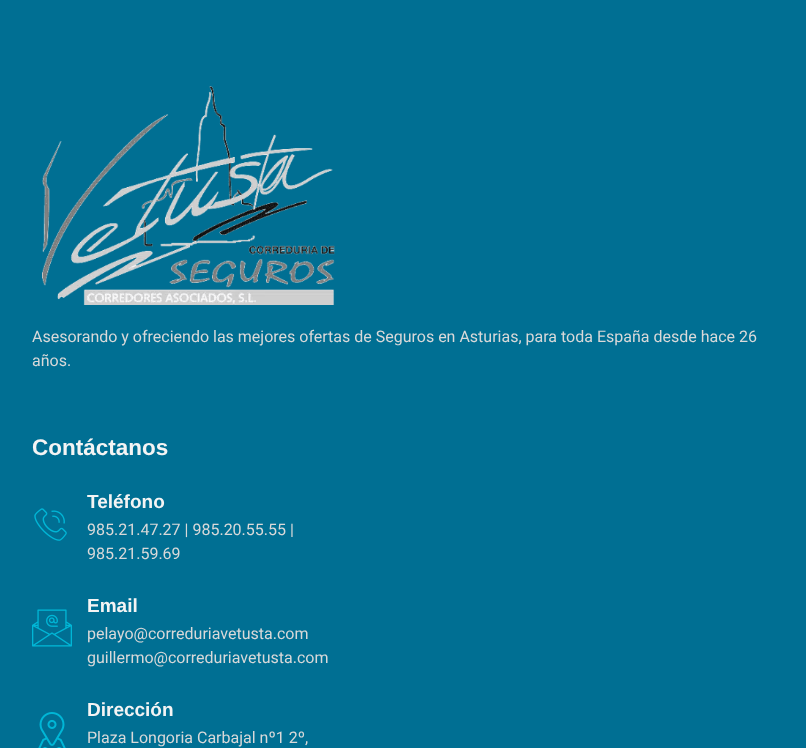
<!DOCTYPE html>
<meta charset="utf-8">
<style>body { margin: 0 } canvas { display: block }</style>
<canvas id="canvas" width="806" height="748"></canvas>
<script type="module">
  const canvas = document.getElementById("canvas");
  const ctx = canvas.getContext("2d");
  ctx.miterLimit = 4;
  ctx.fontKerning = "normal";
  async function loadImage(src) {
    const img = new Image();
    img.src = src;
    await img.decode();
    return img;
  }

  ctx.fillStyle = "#006f93";
  ctx.fillRect(0, 0, 806, 748);
  ctx.drawImage(await loadImage("img1.png"), 42, 86, 293, 219);
  ctx.font = "16px Roboto";
  ctx.fillStyle = "#d9d9d9";
  ctx.fillText("Asesorando y ofreciendo las mejores ofertas de Seguros en Asturias, para toda España desde hace 26", 32, 342);
  ctx.fillText("años.", 32, 366);
  ctx.font = "bold 22.5px Liberation Sans";
  ctx.fillStyle = "#f4f4f4";
  ctx.fillText("Contáctanos", 32, 455);
  ctx.drawImage(await loadImage("img2.png"), 34, 508, 33, 33);
  ctx.font = "bold 19px Liberation Sans";
  ctx.fillText("Teléfono", 87, 508);
  ctx.font = "16px Roboto";
  ctx.fillStyle = "#d9d9d9";
  ctx.fillText("985.21.47.27 | 985.20.55.55 |", 87, 535);
  ctx.fillText("985.21.59.69", 87, 559);
  ctx.drawImage(await loadImage("img3.png"), 32, 609, 40, 38);
  ctx.font = "bold 19px Liberation Sans";
  ctx.fillStyle = "#f4f4f4";
  ctx.fillText("Email", 87, 612);
  ctx.font = "16px Roboto";
  ctx.fillStyle = "#d9d9d9";
  ctx.fillText("pelayo@correduriavetusta.com", 87, 639);
  ctx.fillText("guillermo@correduriavetusta.com", 87, 663);
  ctx.drawImage(await loadImage("img4.png"), 38, 712, 28, 36);
  ctx.font = "bold 19px Liberation Sans";
  ctx.fillStyle = "#f4f4f4";
  ctx.fillText("Dirección", 87, 716);
  ctx.font = "16px Roboto";
  ctx.fillStyle = "#d9d9d9";
  ctx.fillText("Plaza Longoria Carbajal nº1 2º,", 87, 743);
</script>
